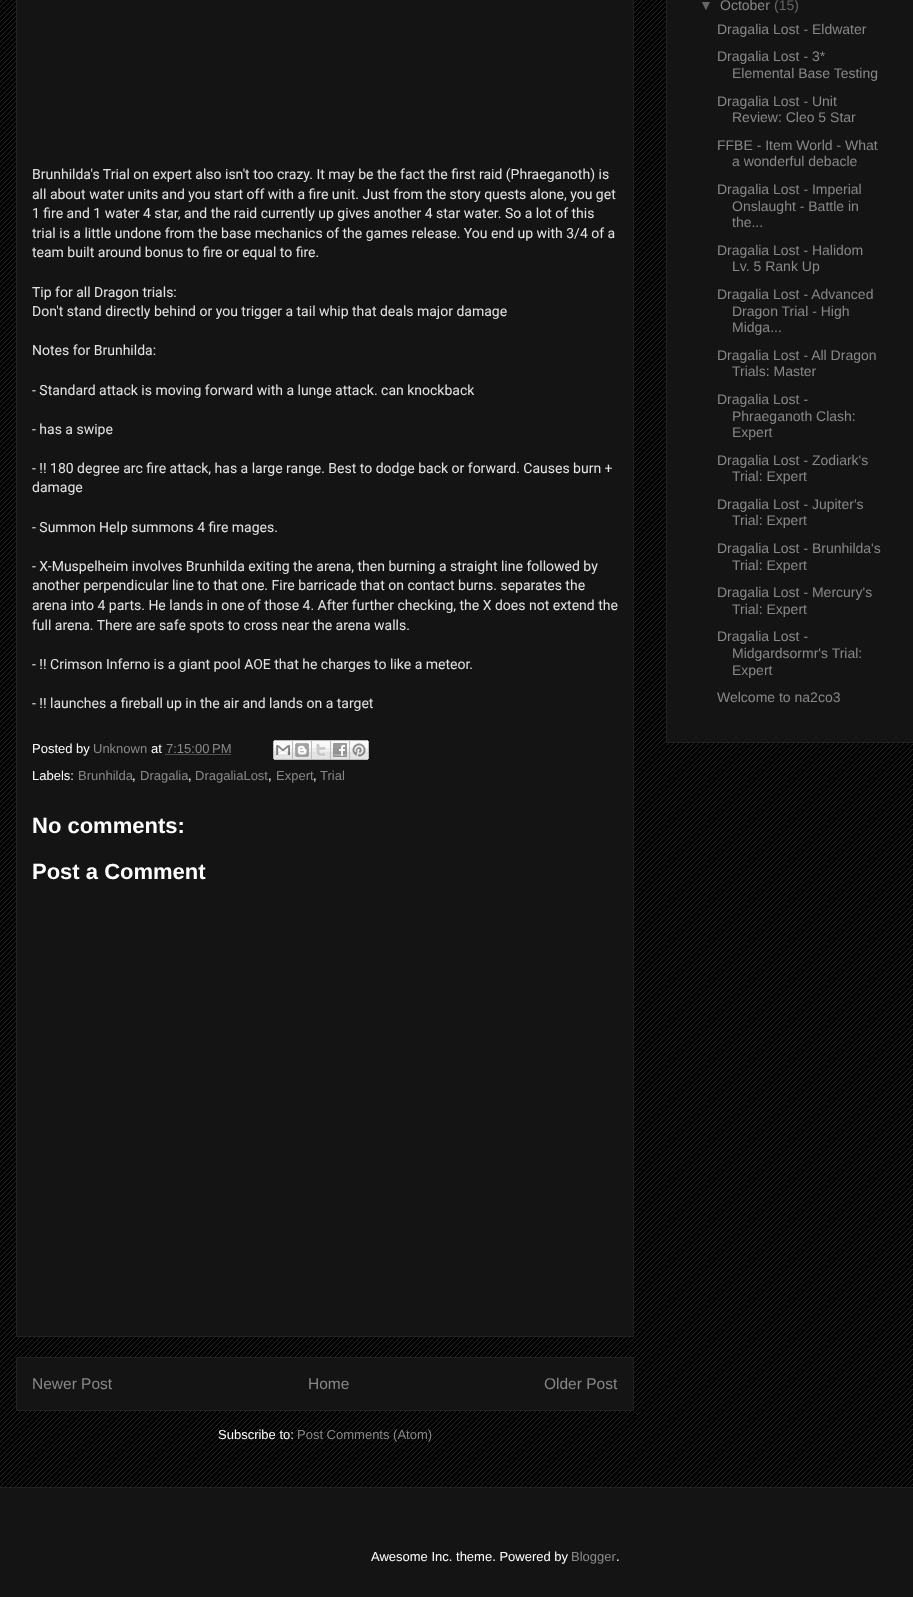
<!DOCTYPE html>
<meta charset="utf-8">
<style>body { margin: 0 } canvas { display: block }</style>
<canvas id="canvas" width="913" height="1597"></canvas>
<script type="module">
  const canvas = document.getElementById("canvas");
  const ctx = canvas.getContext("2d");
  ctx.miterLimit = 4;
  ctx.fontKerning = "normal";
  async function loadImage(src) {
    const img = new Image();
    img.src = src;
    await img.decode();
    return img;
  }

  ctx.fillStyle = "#000000";
  ctx.fillRect(0, 0, 913, 1597);
  ctx.drawImage(await loadImage("img1.png"), 0, 0, 913, 1487);
  ctx.fillStyle = "#141414";
  ctx.beginPath();
  ctx.rect(16.5, -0.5, 617, 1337);
  ctx.fill();
  ctx.strokeStyle = "#222222";
  ctx.stroke();
  ctx.font = "14px Roboto";
  ctx.fillStyle = "#e3e3e3";
  ctx.fillText("Brunhilda's Trial on expert also isn't too crazy. It may be the fact the first raid (Phraeganoth) is", 32, 179);
  ctx.fillText("all about water units and you start off with a fire unit. Just from the story quests alone, you get", 32, 199);
  ctx.fillText("1 fire and 1 water 4 star, and the raid currently up gives another 4 star water. So a lot of this", 32, 218);
  ctx.fillText("trial is a little undone from the base mechanics of the games release. You end up with 3/4 of a", 32, 238);
  ctx.fillText("team built around bonus to fire or equal to fire.", 32, 257);
  ctx.fillText("Tip for all Dragon trials:", 32, 297);
  ctx.fillText("Don't stand directly behind or you trigger a tail whip that deals major damage", 32, 316);
  ctx.fillText("Notes for Brunhilda:", 32, 355);
  ctx.fillText("- Standard attack is moving forward with a lunge attack. can knockback", 32, 395);
  ctx.fillText("- has a swipe", 32, 434);
  ctx.fillText("- !! 180 degree arc fire attack, has a large range. Best to dodge back or forward. Causes burn +", 32, 473);
  ctx.fillText("damage", 32, 492);
  ctx.fillText("- Summon Help summons 4 fire mages.", 32, 532);
  ctx.fillText("- X-Muspelheim involves Brunhilda exiting the arena, then burning a straight line followed by", 32, 571);
  ctx.fillText("another perpendicular line to that one. Fire barricade that on contact burns. separates the", 32, 590);
  ctx.fillText("arena into 4 parts. He lands in one of those 4. After further checking, the X does not extend the", 32, 610);
  ctx.fillText("full arena. There are safe spots to cross near the arena walls.", 32, 630);
  ctx.fillText("- !! Crimson Inferno is a giant pool AOE that he charges to like a meteor.", 32, 669);
  ctx.fillText("- !! launches a fireball up in the air and lands on a target", 32, 708);
  ctx.font = "13px Liberation Sans";
  ctx.fillStyle = "#ffffff";
  ctx.fillText("Posted by", 32, 753);
  ctx.fillStyle = "#888888";
  ctx.fillText("Unknown", 93, 753);
  ctx.fillStyle = "#ffffff";
  ctx.fillText("at", 151, 753);
  ctx.fillStyle = "#888888";
  ctx.fillText("7:15:00 PM", 166, 753);
  ctx.beginPath();
  ctx.moveTo(165.5, 754.5);
  ctx.lineTo(231, 754.5);
  ctx.strokeStyle = "#888888";
  ctx.setLineDash([1, 1]);
  ctx.stroke();
  ctx.drawImage(await loadImage("img2.png"), 273, 740, 20, 20);
  ctx.drawImage(await loadImage("img3.png"), 293, 740, 19, 20);
  ctx.drawImage(await loadImage("img4.png"), 312, 740, 19, 20);
  ctx.drawImage(await loadImage("img5.png"), 331, 740, 19, 20);
  ctx.drawImage(await loadImage("img6.png"), 350, 740, 19, 20);
  ctx.fillStyle = "#ffffff";
  ctx.fillText("Labels:", 32, 780);
  ctx.fillStyle = "#888888";
  ctx.fillText("Brunhilda", 78, 780);
  ctx.fillStyle = "#ffffff";
  ctx.fillText(",", 132, 780);
  ctx.fillStyle = "#888888";
  ctx.fillText("Dragalia", 140, 780);
  ctx.fillStyle = "#ffffff";
  ctx.fillText(",", 188, 780);
  ctx.fillStyle = "#888888";
  ctx.fillText("DragaliaLost", 195, 780);
  ctx.fillStyle = "#ffffff";
  ctx.fillText(",", 268, 780);
  ctx.fillStyle = "#888888";
  ctx.fillText("Expert", 276, 780);
  ctx.fillStyle = "#ffffff";
  ctx.fillText(",", 313, 780);
  ctx.fillStyle = "#888888";
  ctx.fillText("Trial", 320, 780);
  ctx.font = "bold 22px Liberation Sans";
  ctx.fillStyle = "#ffffff";
  ctx.fillText("No comments:", 32, 833);
  ctx.fillText("Post a Comment", 32, 879);
  ctx.fillStyle = "#141414";
  ctx.beginPath();
  ctx.rect(16.5, 1357.5, 617, 53);
  ctx.fill();
  ctx.strokeStyle = "#222222";
  ctx.setLineDash([]);
  ctx.stroke();
  ctx.font = "15.5px Liberation Sans";
  ctx.fillStyle = "#888888";
  ctx.fillText("Newer Post", 32, 1389);
  ctx.fillText("Home", 308, 1389);
  ctx.fillText("Older Post", 544, 1389);
  ctx.font = "13px Liberation Sans";
  ctx.fillStyle = "#ffffff";
  ctx.fillText("Subscribe to:", 218, 1439);
  ctx.fillStyle = "#888888";
  ctx.fillText("Post Comments (Atom)", 297, 1439);
  ctx.fillStyle = "#141414";
  ctx.beginPath();
  ctx.rect(666.5, -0.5, 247, 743);
  ctx.fill();
  ctx.stroke();
  ctx.font = "14px Liberation Sans";
  ctx.fillStyle = "#666666";
  ctx.fillText("▼", 699, 10);
  ctx.fillStyle = "#888888";
  ctx.fillText("October", 720, 10);
  ctx.fillStyle = "#666666";
  ctx.fillText("(15)", 774, 10);
  ctx.fillStyle = "#888888";
  ctx.fillText("Dragalia Lost - Eldwater", 717, 34);
  ctx.fillText("Dragalia Lost - 3*", 717, 61);
  ctx.fillText("Elemental Base Testing", 732, 78);
  ctx.fillText("Dragalia Lost - Unit", 717, 106);
  ctx.fillText("Review: Cleo 5 Star", 732, 122);
  ctx.fillText("FFBE - Item World - What", 717, 150);
  ctx.fillText("a wonderful debacle", 732, 166);
  ctx.fillText("Dragalia Lost - Imperial", 717, 194);
  ctx.fillText("Onslaught - Battle in", 732, 211);
  ctx.fillText("the...", 732, 227);
  ctx.fillText("Dragalia Lost - Halidom", 717, 255);
  ctx.fillText("Lv. 5 Rank Up", 732, 271);
  ctx.fillText("Dragalia Lost - Advanced", 717, 299);
  ctx.fillText("Dragon Trial - High", 732, 316);
  ctx.fillText("Midga...", 732, 332);
  ctx.fillText("Dragalia Lost - All Dragon", 717, 360);
  ctx.fillText("Trials: Master", 732, 376);
  ctx.fillText("Dragalia Lost -", 717, 404);
  ctx.fillText("Phraeganoth Clash:", 732, 421);
  ctx.fillText("Expert", 732, 437);
  ctx.fillText("Dragalia Lost - Zodiark's", 717, 465);
  ctx.fillText("Trial: Expert", 732, 481);
  ctx.fillText("Dragalia Lost - Jupiter's", 717, 509);
  ctx.fillText("Trial: Expert", 732, 525);
  ctx.fillText("Dragalia Lost - Brunhilda's", 717, 553);
  ctx.fillText("Trial: Expert", 732, 570);
  ctx.fillText("Dragalia Lost - Mercury's", 717, 597);
  ctx.fillText("Trial: Expert", 732, 614);
  ctx.fillText("Dragalia Lost -", 717, 641);
  ctx.fillText("Midgardsormr's Trial:", 732, 658);
  ctx.fillText("Expert", 732, 675);
  ctx.fillText("Welcome to na2co3", 717, 702);
  ctx.fillStyle = "#141414";
  ctx.fillRect(0, 1488, 913, 109);
  ctx.fillStyle = "#222222";
  ctx.fillRect(0, 1487, 913, 1);
  ctx.font = "13px Liberation Sans";
  ctx.fillStyle = "#ffffff";
  ctx.fillText("Awesome Inc. theme. Powered by", 371, 1561);
  ctx.fillStyle = "#888888";
  ctx.fillText("Blogger", 571, 1561);
  ctx.fillStyle = "#ffffff";
  ctx.fillText(".", 616, 1561);
</script>
